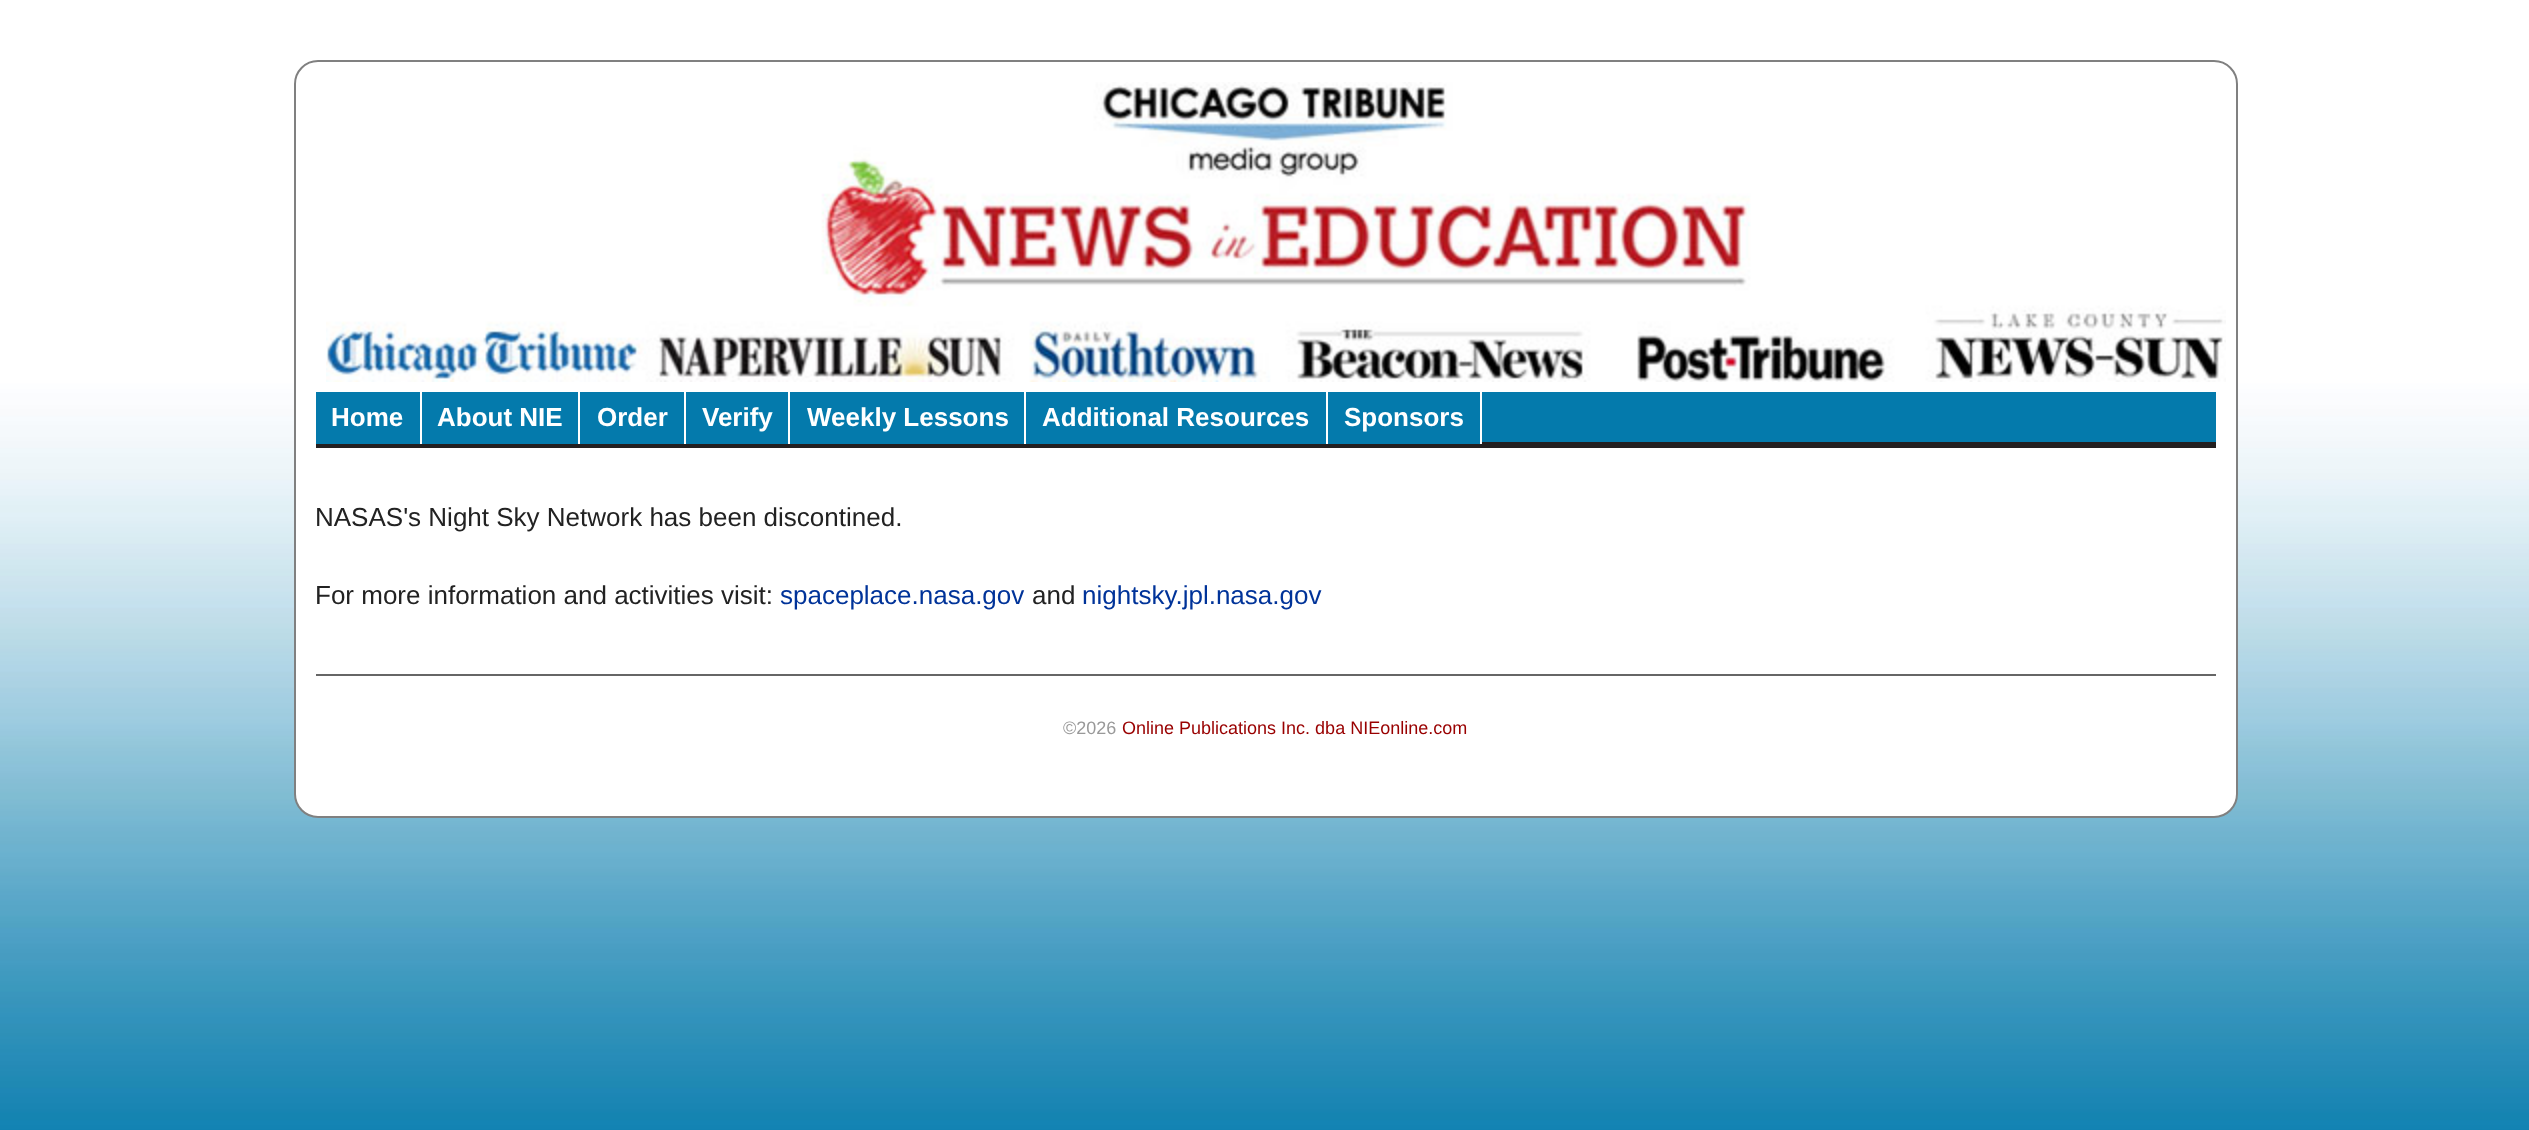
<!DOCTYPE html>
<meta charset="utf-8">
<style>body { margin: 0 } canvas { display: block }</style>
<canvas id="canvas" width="2529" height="1130"></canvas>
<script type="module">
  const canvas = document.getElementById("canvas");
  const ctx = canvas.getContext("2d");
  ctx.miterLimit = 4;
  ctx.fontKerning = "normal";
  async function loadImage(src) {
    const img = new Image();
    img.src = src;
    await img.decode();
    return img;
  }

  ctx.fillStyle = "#ffffff";
  ctx.fillRect(0, 0, 2529, 1130);
  ctx.drawImage(await loadImage("img1.png"), 0, 0, 2529, 1130);
  ctx.beginPath();
  ctx.roundRect(295, 61, 1942, 756, 23);
  ctx.fill();
  ctx.strokeStyle = "#808080";
  ctx.lineWidth = 2;
  ctx.stroke();
  ctx.drawImage(await loadImage("img2.png"), 326, 82, 1900, 300);
  ctx.fillStyle = "#047aac";
  ctx.fillRect(1482, 392, 734, 50);
  ctx.fillStyle = "#231f20";
  ctx.fillRect(316, 442, 1900, 6);
  ctx.fillStyle = "#ffffff";
  ctx.fillRect(420, 442, 2, 2);
  ctx.fillStyle = "#047aac";
  ctx.fillRect(316, 392, 104, 52);
  ctx.font = "bold 26px Liberation Sans";
  ctx.fillStyle = "#ffffff";
  ctx.fillText("Home", 331, 426);
  ctx.fillRect(578, 442, 2, 2);
  ctx.fillStyle = "#047aac";
  ctx.fillRect(422, 392, 156, 52);
  ctx.fillStyle = "#ffffff";
  ctx.fillText("About NIE", 437, 426);
  ctx.fillRect(684, 442, 2, 2);
  ctx.fillStyle = "#047aac";
  ctx.fillRect(580, 392, 104, 52);
  ctx.fillStyle = "#ffffff";
  ctx.fillText("Order", 597, 426);
  ctx.fillRect(788, 442, 2, 2);
  ctx.fillStyle = "#047aac";
  ctx.fillRect(686, 392, 102, 52);
  ctx.fillStyle = "#ffffff";
  ctx.fillText("Verify", 702, 426);
  ctx.fillRect(1024, 442, 2, 2);
  ctx.fillStyle = "#047aac";
  ctx.fillRect(790, 392, 234, 52);
  ctx.fillStyle = "#ffffff";
  ctx.fillText("Weekly Lessons", 807, 426);
  ctx.fillRect(1326, 442, 2, 2);
  ctx.fillStyle = "#047aac";
  ctx.fillRect(1026, 392, 300, 52);
  ctx.fillStyle = "#ffffff";
  ctx.fillText("Additional Resources", 1042, 426);
  ctx.fillRect(1480, 442, 2, 2);
  ctx.fillStyle = "#047aac";
  ctx.fillRect(1328, 392, 152, 52);
  ctx.fillStyle = "#ffffff";
  ctx.fillText("Sponsors", 1344, 426);
  ctx.font = "26px Liberation Sans";
  ctx.fillStyle = "#222222";
  ctx.fillText("NASAS's Night Sky Network has been discontined.", 315, 526);
  ctx.fillText("For more information and activities visit:", 315, 604);
  ctx.fillStyle = "#003399";
  ctx.fillText("spaceplace.nasa.gov", 780, 604);
  ctx.fillStyle = "#222222";
  ctx.fillText("and", 1032, 604);
  ctx.fillStyle = "#003399";
  ctx.fillText("nightsky.jpl.nasa.gov", 1082, 604);
  ctx.fillStyle = "#666666";
  ctx.fillRect(316, 674, 1900, 2);
  ctx.font = "18px Liberation Sans";
  ctx.fillStyle = "#999999";
  ctx.fillText("©2026", 1063, 734);
  ctx.fillStyle = "#990000";
  ctx.fillText("Online Publications Inc. dba NIEonline.com", 1122, 734);
</script>
